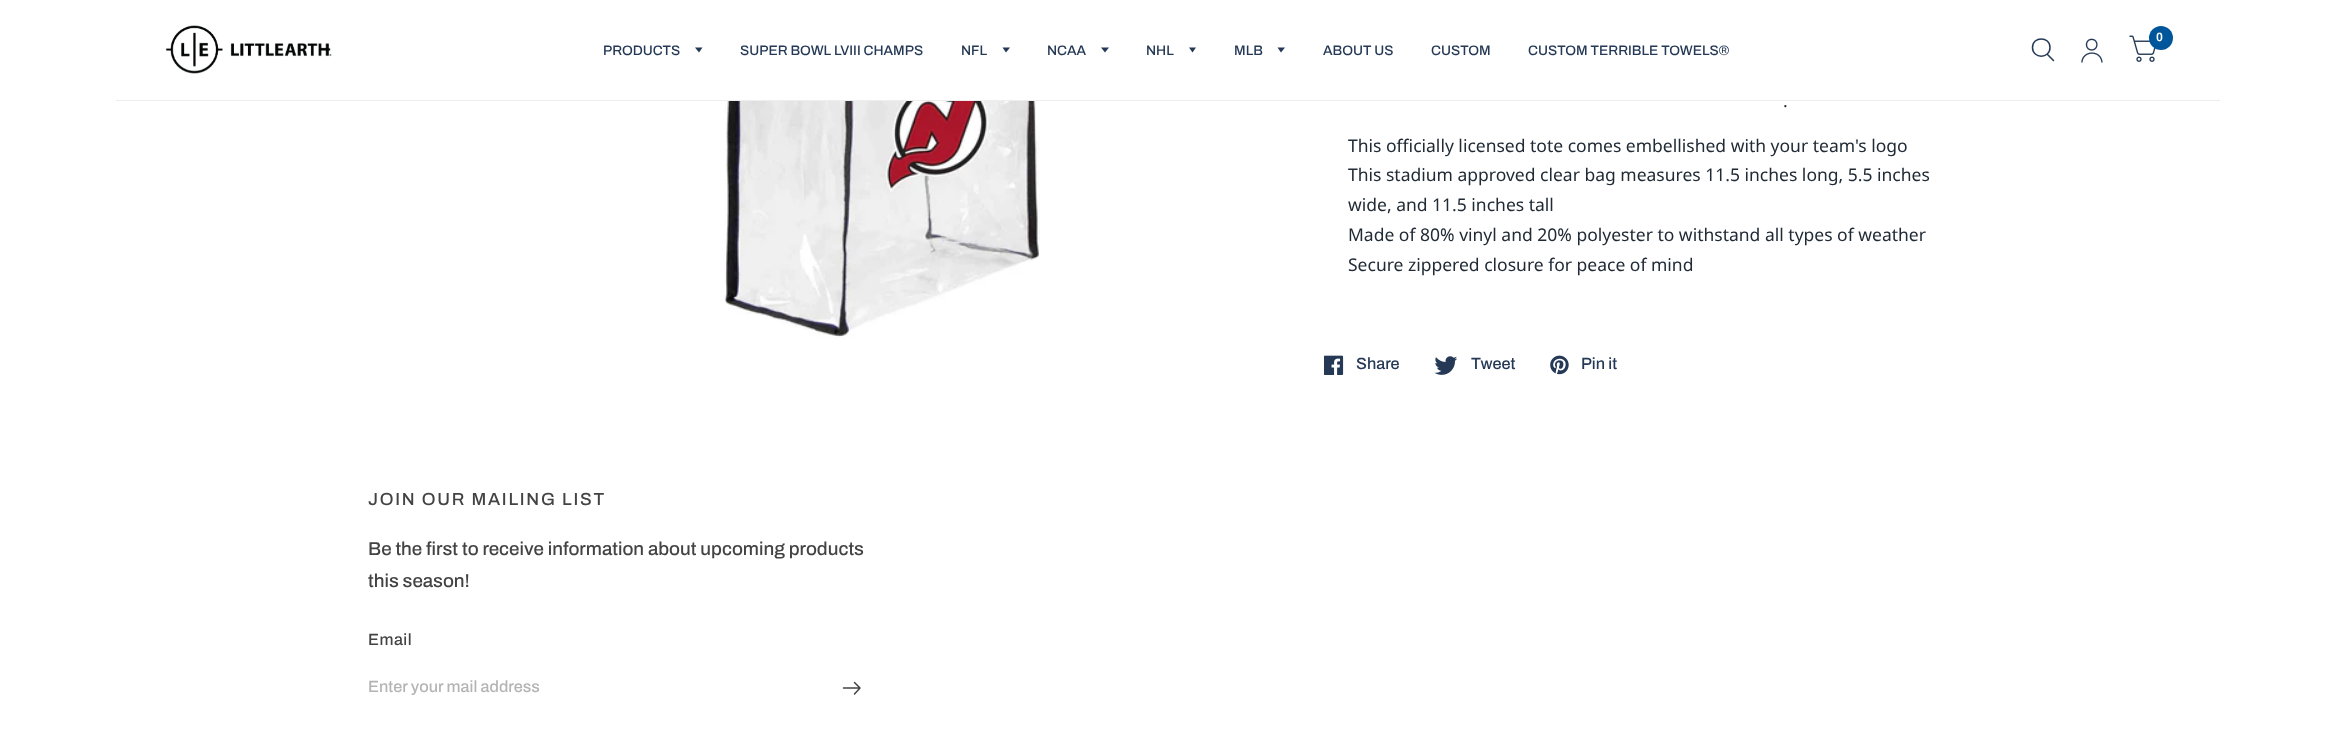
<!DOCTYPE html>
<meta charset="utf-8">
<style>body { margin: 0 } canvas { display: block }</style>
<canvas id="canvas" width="2336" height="731"></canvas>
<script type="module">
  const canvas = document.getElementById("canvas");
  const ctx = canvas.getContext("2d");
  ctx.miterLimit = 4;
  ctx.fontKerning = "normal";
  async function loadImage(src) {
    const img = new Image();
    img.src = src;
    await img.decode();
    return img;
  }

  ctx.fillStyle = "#ffffff";
  ctx.fillRect(0, 0, 2336, 731);
  ctx.fillStyle = "#eeeeee";
  ctx.fillRect(116, 100, 2104, 1);
  ctx.drawImage(await loadImage("img1.png"), 166, 25, 166, 49);
  ctx.drawImage(await loadImage("img2.png"), 2129, 35, 27, 27);
  ctx.fillStyle = "#00569b";
  ctx.beginPath();
  ctx.arc(2161, 38, 12, 0, Math.PI * 2);
  ctx.fill();
  ctx.font = "600 12px Archivo";
  ctx.fillStyle = "#ffffff";
  ctx.fillText("0", 2156, 41);
  ctx.beginPath();
  ctx.moveTo(2047.5, 54.5);
  ctx.lineTo(2053.5, 60.5);
  ctx.moveTo(2050, 47.5);
  ctx.bezierCurveTo(2050, 59, 2032.5, 59, 2032.5, 47.5);
  ctx.bezierCurveTo(2032.5, 36, 2050, 36, 2050, 47.5);
  ctx.closePath();
  ctx.strokeStyle = "#253956";
  ctx.lineWidth = 1.5;
  ctx.lineCap = "round";
  ctx.lineJoin = "round";
  ctx.stroke();
  ctx.drawImage(await loadImage("img3.png"), 2081, 38, 22, 25);
  ctx.font = "500 13.75px Archivo";
  ctx.fillStyle = "#253956";
  ctx.fillText("PRODUCTS", 603, 55);
  ctx.beginPath();
  ctx.moveTo(695, 47.5);
  ctx.lineTo(702.5, 47.5);
  ctx.lineTo(699, 52.5);
  ctx.closePath();
  ctx.fill();
  ctx.fillText("SUPER BOWL LVIII CHAMPS", 740, 55);
  ctx.fillText("NFL", 961, 55);
  ctx.beginPath();
  ctx.moveTo(1002.5, 47.5);
  ctx.lineTo(1010, 47.5);
  ctx.lineTo(1006, 52.5);
  ctx.closePath();
  ctx.fill();
  ctx.fillText("NCAA", 1047, 55);
  ctx.beginPath();
  ctx.moveTo(1101, 47.5);
  ctx.lineTo(1109, 47.5);
  ctx.lineTo(1105, 52.5);
  ctx.closePath();
  ctx.fill();
  ctx.fillText("NHL", 1146, 55);
  ctx.beginPath();
  ctx.moveTo(1189, 47.5);
  ctx.lineTo(1196, 47.5);
  ctx.lineTo(1192.5, 52.5);
  ctx.closePath();
  ctx.fill();
  ctx.fillText("MLB", 1234, 55);
  ctx.beginPath();
  ctx.moveTo(1277.5, 47.5);
  ctx.lineTo(1285, 47.5);
  ctx.lineTo(1281, 52.5);
  ctx.closePath();
  ctx.fill();
  ctx.fillText("ABOUT US", 1323, 55);
  ctx.fillText("CUSTOM", 1431, 55);
  ctx.fillText("CUSTOM TERRIBLE TOWELS®", 1528, 55);
  ctx.drawImage(await loadImage("img4.png"), 724, 101, 316, 238);
  ctx.font = "17.5px Noto Sans";
  ctx.fillStyle = "#212b36";
  ctx.fillText(".", 1783, 107);
  ctx.fillText("This officially licensed tote comes embellished with your team's logo", 1348, 152);
  ctx.fillText("This stadium approved clear bag measures 11.5 inches long, 5.5 inches", 1348, 181);
  ctx.fillText("wide, and 11.5 inches tall", 1348, 211);
  ctx.fillText("Made of 80% vinyl and 20% polyester to withstand all types of weather", 1348, 241);
  ctx.fillText("Secure zippered closure for peace of mind", 1348, 271);
  ctx.drawImage(await loadImage("img5.png"), 1324, 355, 20, 20);
  ctx.font = "500 16.25px Archivo";
  ctx.fillStyle = "#253956";
  ctx.fillText("Share", 1356, 369);
  ctx.drawImage(await loadImage("img6.png"), 1434, 356, 24, 19);
  ctx.fillText("Tweet", 1471, 369);
  ctx.drawImage(await loadImage("img7.png"), 1550, 355, 19, 20);
  ctx.fillText("Pin it", 1581, 369);
  ctx.letterSpacing = "1.75px";
  ctx.font = "500 17.5px Archivo";
  ctx.fillStyle = "#434343";
  ctx.fillText("JOIN OUR MAILING LIST", 368, 505);
  ctx.letterSpacing = "0px";
  ctx.font = "500 18.75px Archivo";
  ctx.fillText("Be the first to receive information about upcoming products", 368, 555);
  ctx.fillText("this season!", 368, 587);
  ctx.letterSpacing = "0.5px";
  ctx.font = "500 16.25px Archivo";
  ctx.fillText("Email", 368, 645);
  ctx.letterSpacing = "0px";
  ctx.fillStyle = "#b4b4b4";
  ctx.fillText("Enter your mail address", 368, 692);
  ctx.beginPath();
  ctx.moveTo(843.5, 688);
  ctx.lineTo(858.5, 688);
  ctx.moveTo(854.5, 682.5);
  ctx.lineTo(860, 688);
  ctx.lineTo(854.5, 694);
  ctx.strokeStyle = "#434343";
  ctx.stroke();
</script>
